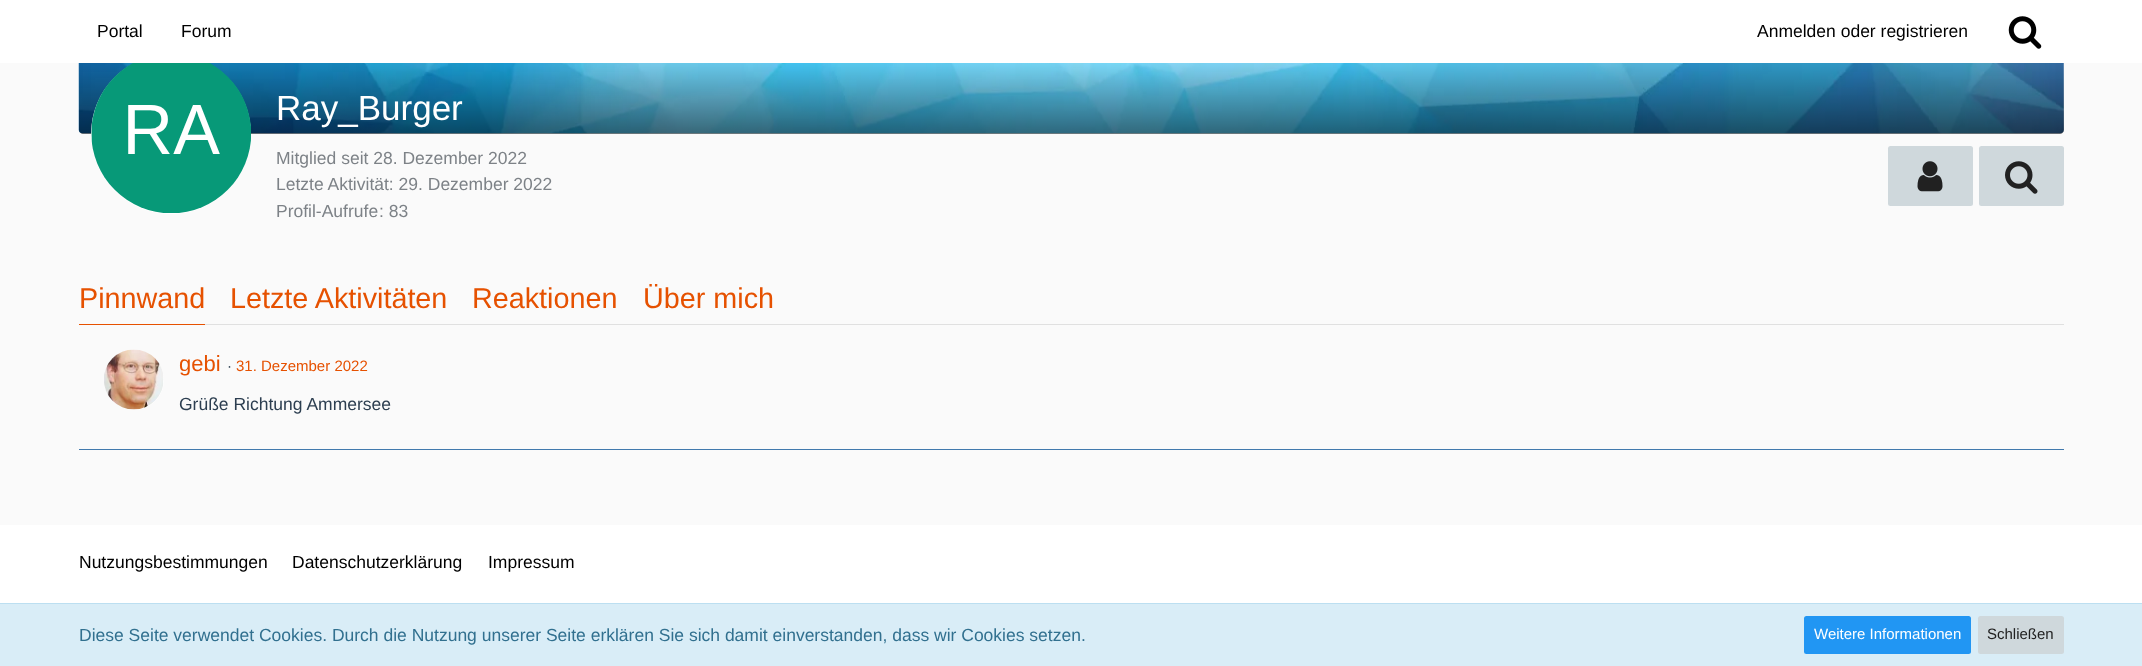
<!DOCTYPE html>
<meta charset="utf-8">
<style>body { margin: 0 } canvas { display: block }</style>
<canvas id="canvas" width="2142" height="666"></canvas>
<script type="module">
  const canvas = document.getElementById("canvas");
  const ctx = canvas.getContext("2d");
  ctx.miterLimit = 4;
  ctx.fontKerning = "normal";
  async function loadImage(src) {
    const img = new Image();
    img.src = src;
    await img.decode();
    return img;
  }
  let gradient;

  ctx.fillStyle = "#fafafa";
  ctx.fillRect(0, 0, 2142, 666);
  ctx.drawImage(await loadImage("img2.png"), 78, 63, 1986, 71);
  gradient = ctx.createLinearGradient(1071, -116, 1071, 134);
  gradient.addColorStop(0.7, "rgba(0, 0, 0, 0)");
  gradient.addColorStop(1, "rgba(0, 0, 0, 0.5)");
  ctx.fillStyle = gradient;
  ctx.beginPath();
  ctx.moveTo(79, -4);
  ctx.lineTo(2064, -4);
  ctx.lineTo(2064, 130);
  ctx.bezierCurveTo(2064, 132, 2062, 134, 2060, 134);
  ctx.lineTo(83, 134);
  ctx.bezierCurveTo(81, 134, 79, 132, 79, 130);
  ctx.closePath();
  ctx.fill();
  ctx.fillStyle = "#ffffff";
  ctx.beginPath();
  ctx.arc(171, 134, 80, 0, Math.PI * 2);
  ctx.fill();
  ctx.fillRect(0, 0, 2142, 63);
  ctx.font = "17.5px Liberation Sans";
  ctx.fillStyle = "#000000";
  ctx.fillText("Portal", 97, 37);
  ctx.fillText("Forum", 181, 37);
  ctx.fillText("Anmelden oder registrieren", 1757, 37);
  ctx.drawImage(await loadImage("img1.png"), 2008, 16, 34, 33);
  ctx.drawImage(await loadImage("img3.png"), 91, 63, 160, 150);
  ctx.font = "35px Liberation Sans";
  ctx.fillStyle = "#ffffff";
  ctx.fillText("Ray_Burger", 276, 120);
  ctx.font = "17.5px Liberation Sans";
  ctx.fillStyle = "#7d8287";
  ctx.fillText("Mitglied seit 28. Dezember 2022", 276, 164);
  ctx.fillText("Letzte Aktivität: 29. Dezember 2022", 276, 190);
  ctx.fillText("Profil-Aufrufe", 276, 217);
  ctx.fillText(": 83", 379, 217);
  ctx.fillStyle = "#cfd8dc";
  ctx.beginPath();
  ctx.roundRect(1888, 146, 85, 60, 2.5);
  ctx.fill();
  ctx.drawImage(await loadImage("img4.png"), 1917, 161, 26, 31);
  ctx.beginPath();
  ctx.roundRect(1979, 146, 85, 60, 2.5);
  ctx.fill();
  ctx.drawImage(await loadImage("img5.png"), 2005, 161, 33, 33);
  ctx.fillStyle = "#e0e0e0";
  ctx.fillRect(205, 324, 1859, 1);
  ctx.font = "28.75px Liberation Sans";
  ctx.fillStyle = "#e65100";
  ctx.fillText("Pinnwand", 79, 308);
  ctx.fillRect(79, 324, 126, 1);
  ctx.fillText("Letzte Aktivitäten", 230, 308);
  ctx.fillText("Reaktionen", 472, 308);
  ctx.fillText("Über mich", 643, 308);
  ctx.fillStyle = "#4179ad";
  ctx.fillRect(79, 449, 1985, 1);
  ctx.fillStyle = "#ffffff";
  ctx.beginPath();
  ctx.arc(134, 380, 30, 0, Math.PI * 2);
  ctx.fill();
  ctx.drawImage(await loadImage("img6.png"), 104, 349, 60, 61);
  ctx.font = "22px Liberation Sans";
  ctx.fillStyle = "#e65100";
  ctx.fillText("gebi", 179, 371);
  ctx.font = "15px Liberation Sans";
  ctx.fillStyle = "#2c3e50";
  ctx.fillText("·", 227, 371);
  ctx.fillStyle = "#e65100";
  ctx.fillText("31. Dezember 2022", 236, 371);
  ctx.font = "17.5px Liberation Sans";
  ctx.fillStyle = "#2c3e50";
  ctx.fillText("Grüße Richtung Ammersee", 179, 410);
  ctx.fillStyle = "#ffffff";
  ctx.fillRect(0, 525, 2142, 78);
  ctx.fillStyle = "#000000";
  ctx.fillText("Nutzungsbestimmungen", 79, 568);
  ctx.fillText("Datenschutzerklärung", 292, 568);
  ctx.fillText("Impressum", 488, 568);
  ctx.fillStyle = "#d9edf7";
  ctx.fillRect(0, 604, 2142, 62);
  ctx.fillStyle = "#bcdff1";
  ctx.fillRect(0, 603, 2142, 1);
  ctx.fillStyle = "#31708f";
  ctx.fillText("Diese Seite verwendet Cookies. Durch die Nutzung unserer Seite erklären Sie sich damit einverstanden, dass wir Cookies setzen.", 79, 641);
  ctx.fillStyle = "#2196f3";
  ctx.beginPath();
  ctx.roundRect(1804, 616, 167, 38, 2.5);
  ctx.fill();
  ctx.font = "15px Liberation Sans";
  ctx.fillStyle = "#ffffff";
  ctx.fillText("Weitere Informationen", 1814, 639);
  ctx.fillStyle = "#cfd8dc";
  ctx.beginPath();
  ctx.roundRect(1978, 616, 86, 38, 2.5);
  ctx.fill();
  ctx.fillStyle = "#212121";
  ctx.fillText("Schließen", 1987, 639);
</script>
